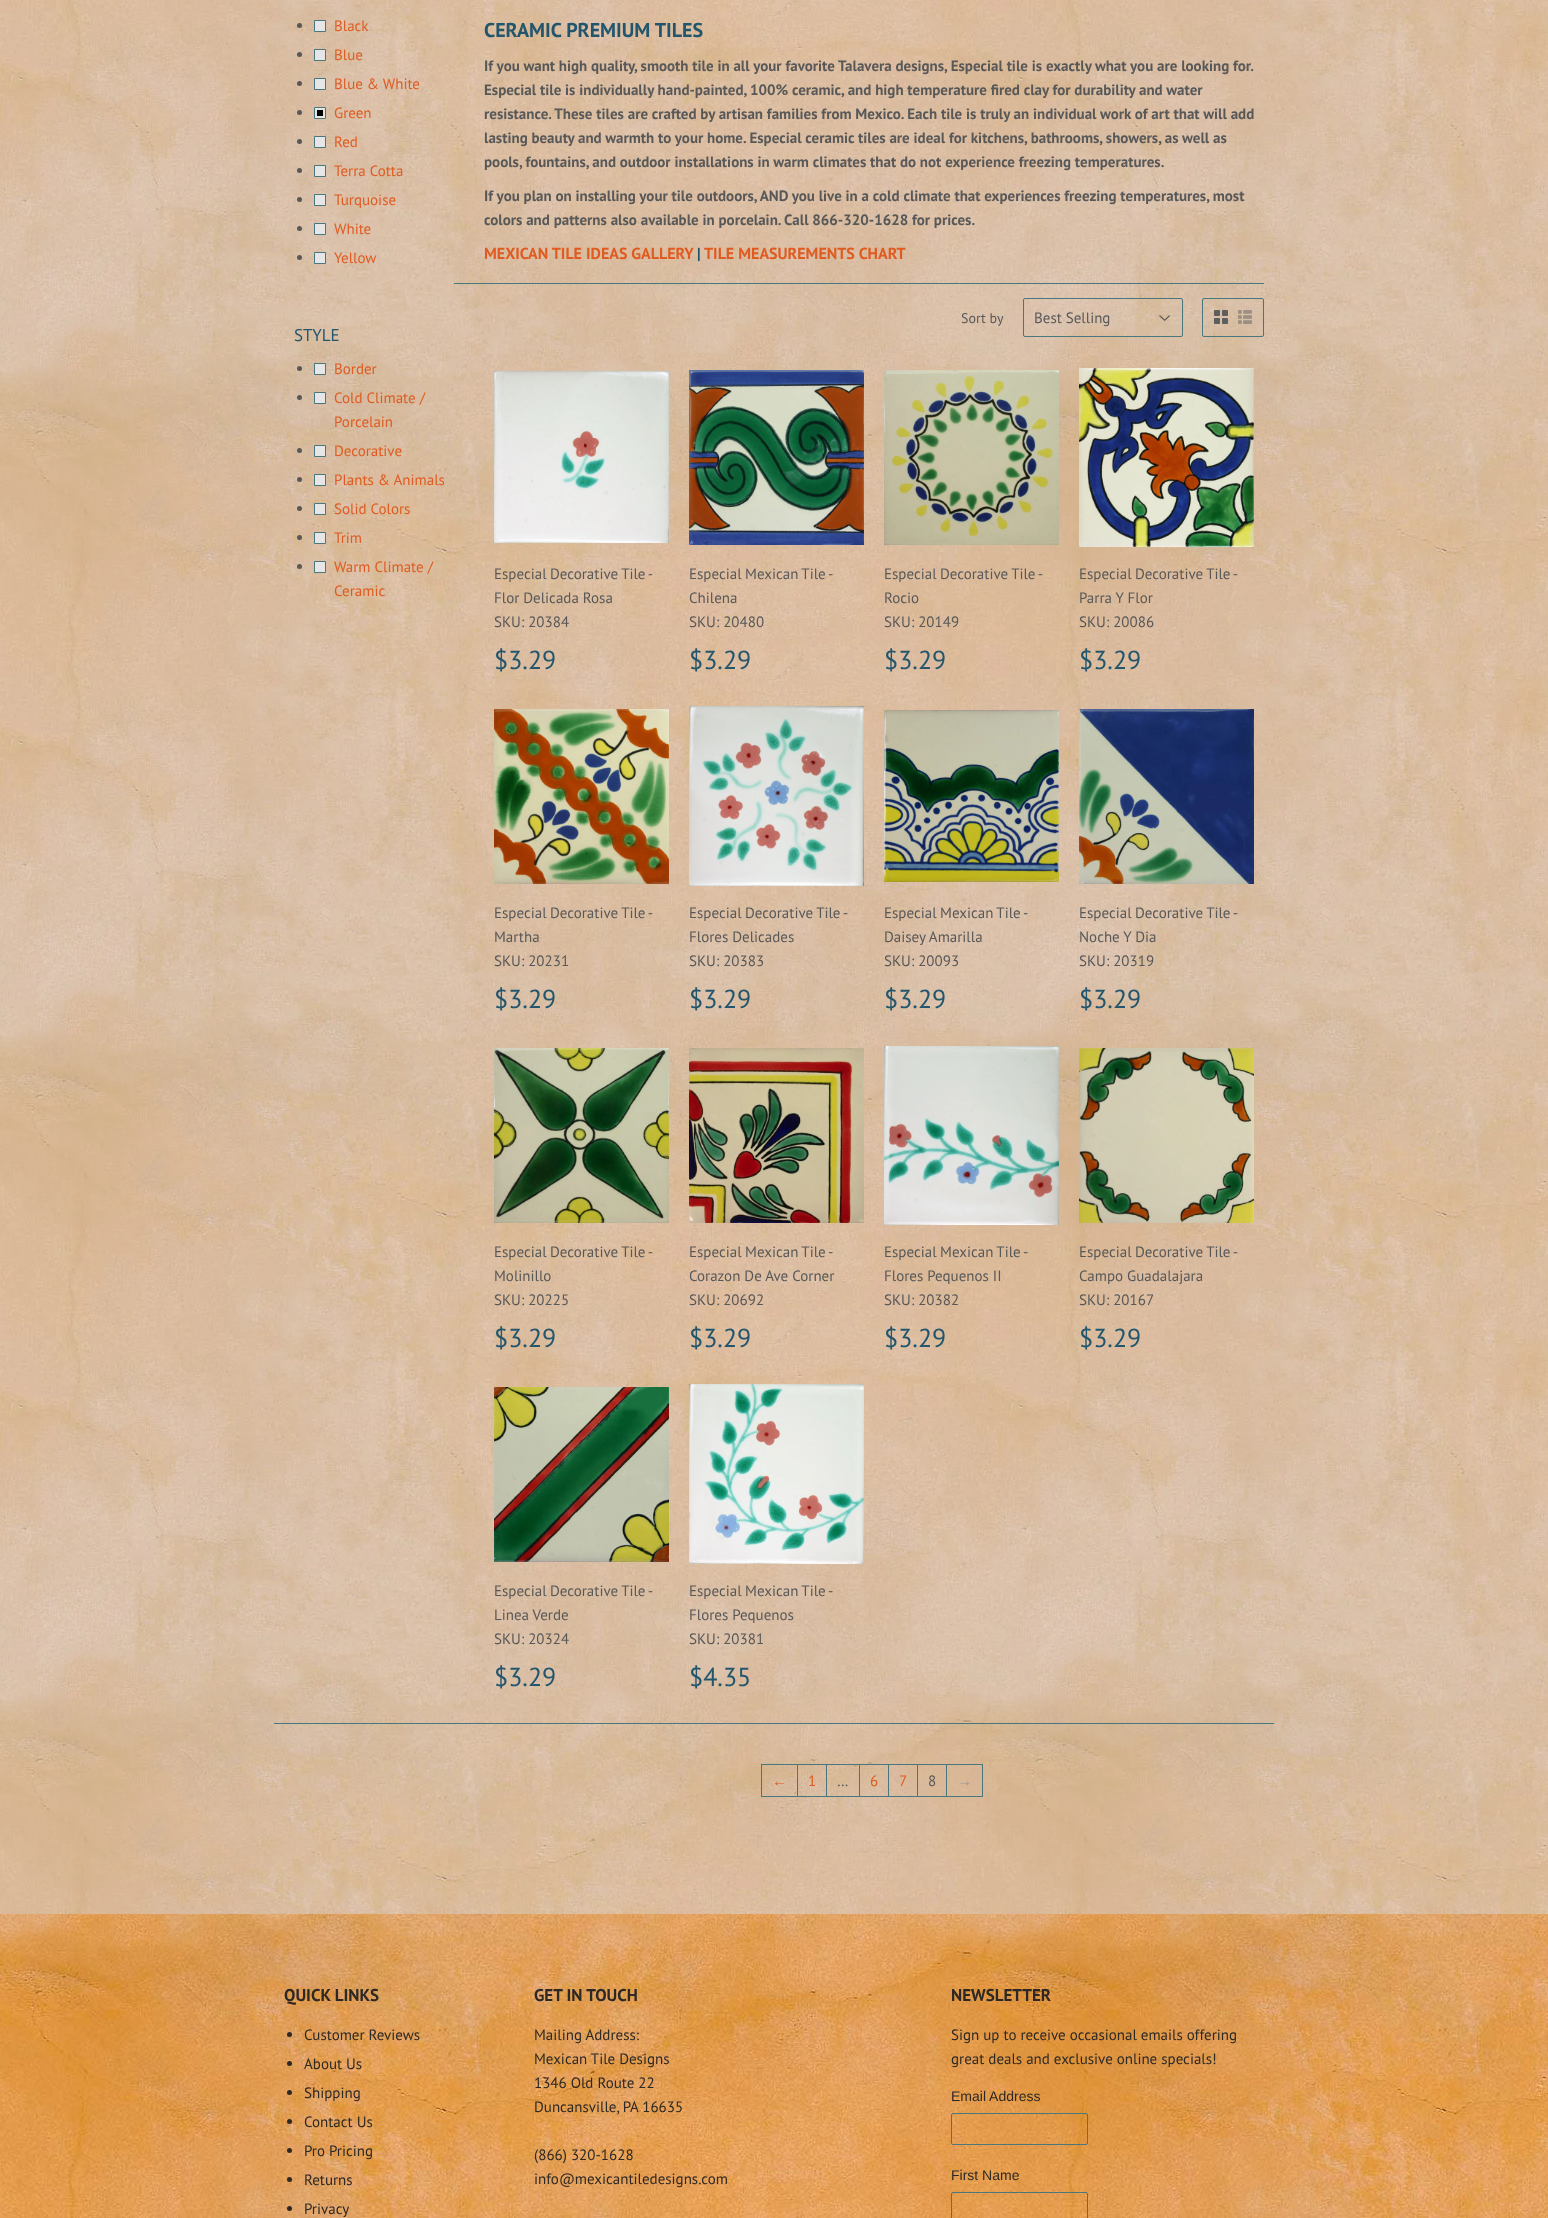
<!DOCTYPE html>
<meta charset="utf-8">
<style>body { margin: 0 } canvas { display: block }</style>
<canvas id="canvas" width="1548" height="2218"></canvas>
<script type="module">
  const canvas = document.getElementById("canvas");
  const ctx = canvas.getContext("2d");
  ctx.miterLimit = 4;
  ctx.fontKerning = "normal";
  async function loadImage(src) {
    const img = new Image();
    img.src = src;
    await img.decode();
    return img;
  }

  ctx.fillStyle = "#ffffff";
  ctx.fillRect(0, 0, 1548, 2218);
  ctx.drawImage(await loadImage("img1.png"), 0, 0, 1548, 1914);
  ctx.fillStyle = "#585858";
  ctx.beginPath();
  ctx.arc(299.5, 25.5, 2.5, 0, Math.PI * 2);
  ctx.fill();
  ctx.fillStyle = "#e6e6e6";
  ctx.beginPath();
  ctx.rect(314.5, 20.5, 11, 11);
  ctx.fill();
  ctx.strokeStyle = "#4a767e";
  ctx.stroke();
  ctx.font = "15px PT Sans";
  ctx.fillStyle = "#df5b21";
  ctx.fillText("Black", 334, 31);
  ctx.fillStyle = "#585858";
  ctx.beginPath();
  ctx.arc(299.5, 54.5, 2.5, 0, Math.PI * 2);
  ctx.fill();
  ctx.fillStyle = "#e6e6e6";
  ctx.beginPath();
  ctx.rect(314.5, 49.5, 11, 11);
  ctx.fill();
  ctx.stroke();
  ctx.fillStyle = "#df5b21";
  ctx.fillText("Blue", 334, 60);
  ctx.fillStyle = "#585858";
  ctx.beginPath();
  ctx.arc(299.5, 83.5, 2.5, 0, Math.PI * 2);
  ctx.fill();
  ctx.fillStyle = "#e6e6e6";
  ctx.beginPath();
  ctx.rect(314.5, 78.5, 11, 11);
  ctx.fill();
  ctx.stroke();
  ctx.fillStyle = "#df5b21";
  ctx.fillText("Blue & White", 334, 89);
  ctx.fillStyle = "#585858";
  ctx.beginPath();
  ctx.arc(299.5, 112.5, 2.5, 0, Math.PI * 2);
  ctx.fill();
  ctx.fillStyle = "#e6e6e6";
  ctx.beginPath();
  ctx.rect(314.5, 107.5, 11, 11);
  ctx.fill();
  ctx.stroke();
  ctx.fillStyle = "#df5b21";
  ctx.fillText("Green", 334, 118);
  ctx.fillStyle = "#000000";
  ctx.fillRect(317, 110, 6, 6);
  ctx.fillStyle = "#585858";
  ctx.beginPath();
  ctx.arc(299.5, 141.5, 2.5, 0, Math.PI * 2);
  ctx.fill();
  ctx.fillStyle = "#e6e6e6";
  ctx.beginPath();
  ctx.rect(314.5, 136.5, 11, 11);
  ctx.fill();
  ctx.stroke();
  ctx.fillStyle = "#df5b21";
  ctx.fillText("Red", 334, 147);
  ctx.fillStyle = "#585858";
  ctx.beginPath();
  ctx.arc(299.5, 170.5, 2.5, 0, Math.PI * 2);
  ctx.fill();
  ctx.fillStyle = "#e6e6e6";
  ctx.beginPath();
  ctx.rect(314.5, 165.5, 11, 11);
  ctx.fill();
  ctx.stroke();
  ctx.fillStyle = "#df5b21";
  ctx.fillText("Terra Cotta", 334, 176);
  ctx.fillStyle = "#585858";
  ctx.beginPath();
  ctx.arc(299.5, 199.5, 2.5, 0, Math.PI * 2);
  ctx.fill();
  ctx.fillStyle = "#e6e6e6";
  ctx.beginPath();
  ctx.rect(314.5, 194.5, 11, 11);
  ctx.fill();
  ctx.stroke();
  ctx.fillStyle = "#df5b21";
  ctx.fillText("Turquoise", 334, 205);
  ctx.fillStyle = "#585858";
  ctx.beginPath();
  ctx.arc(299.5, 228.5, 2.5, 0, Math.PI * 2);
  ctx.fill();
  ctx.fillStyle = "#e6e6e6";
  ctx.beginPath();
  ctx.rect(314.5, 223.5, 11, 11);
  ctx.fill();
  ctx.stroke();
  ctx.fillStyle = "#df5b21";
  ctx.fillText("White", 334, 234);
  ctx.fillStyle = "#585858";
  ctx.beginPath();
  ctx.arc(299.5, 257.5, 2.5, 0, Math.PI * 2);
  ctx.fill();
  ctx.fillStyle = "#e6e6e6";
  ctx.beginPath();
  ctx.rect(314.5, 252.5, 11, 11);
  ctx.fill();
  ctx.stroke();
  ctx.fillStyle = "#df5b21";
  ctx.fillText("Yellow", 334, 263);
  ctx.font = "17px PT Sans";
  ctx.fillStyle = "#23566d";
  ctx.fillText("STYLE", 294, 341);
  ctx.fillStyle = "#585858";
  ctx.beginPath();
  ctx.arc(299.5, 368.5, 2.5, 0, Math.PI * 2);
  ctx.fill();
  ctx.fillStyle = "#e6e6e6";
  ctx.beginPath();
  ctx.rect(314.5, 363.5, 11, 11);
  ctx.fill();
  ctx.stroke();
  ctx.font = "15px PT Sans";
  ctx.fillStyle = "#df5b21";
  ctx.fillText("Border", 334, 374);
  ctx.fillStyle = "#585858";
  ctx.beginPath();
  ctx.arc(299.5, 397.5, 2.5, 0, Math.PI * 2);
  ctx.fill();
  ctx.fillStyle = "#e6e6e6";
  ctx.beginPath();
  ctx.rect(314.5, 392.5, 11, 11);
  ctx.fill();
  ctx.stroke();
  ctx.fillStyle = "#df5b21";
  ctx.fillText("Cold Climate /", 334, 403);
  ctx.fillText("Porcelain", 334, 427);
  ctx.fillStyle = "#585858";
  ctx.beginPath();
  ctx.arc(299.5, 450.5, 2.5, 0, Math.PI * 2);
  ctx.fill();
  ctx.fillStyle = "#e6e6e6";
  ctx.beginPath();
  ctx.rect(314.5, 445.5, 11, 11);
  ctx.fill();
  ctx.stroke();
  ctx.fillStyle = "#df5b21";
  ctx.fillText("Decorative", 334, 456);
  ctx.fillStyle = "#585858";
  ctx.beginPath();
  ctx.arc(299.5, 479.5, 2.5, 0, Math.PI * 2);
  ctx.fill();
  ctx.fillStyle = "#e6e6e6";
  ctx.beginPath();
  ctx.rect(314.5, 474.5, 11, 11);
  ctx.fill();
  ctx.stroke();
  ctx.fillStyle = "#df5b21";
  ctx.fillText("Plants & Animals", 334, 485);
  ctx.fillStyle = "#585858";
  ctx.beginPath();
  ctx.arc(299.5, 508.5, 2.5, 0, Math.PI * 2);
  ctx.fill();
  ctx.fillStyle = "#e6e6e6";
  ctx.beginPath();
  ctx.rect(314.5, 503.5, 11, 11);
  ctx.fill();
  ctx.stroke();
  ctx.fillStyle = "#df5b21";
  ctx.fillText("Solid Colors", 334, 514);
  ctx.fillStyle = "#585858";
  ctx.beginPath();
  ctx.arc(299.5, 537.5, 2.5, 0, Math.PI * 2);
  ctx.fill();
  ctx.fillStyle = "#e6e6e6";
  ctx.beginPath();
  ctx.rect(314.5, 532.5, 11, 11);
  ctx.fill();
  ctx.stroke();
  ctx.fillStyle = "#df5b21";
  ctx.fillText("Trim", 334, 543);
  ctx.fillStyle = "#585858";
  ctx.beginPath();
  ctx.arc(299.5, 566.5, 2.5, 0, Math.PI * 2);
  ctx.fill();
  ctx.fillStyle = "#e6e6e6";
  ctx.beginPath();
  ctx.rect(314.5, 561.5, 11, 11);
  ctx.fill();
  ctx.stroke();
  ctx.fillStyle = "#df5b21";
  ctx.fillText("Warm Climate /", 334, 572);
  ctx.fillText("Ceramic", 334, 596);
  ctx.font = "bold 20px PT Sans";
  ctx.fillStyle = "#23566d";
  ctx.fillText("CERAMIC PREMIUM TILES", 484, 37);
  ctx.font = "bold 15px PT Sans";
  ctx.fillStyle = "#585858";
  ctx.fillText("If you want high quality, smooth tile in all your favorite Talavera designs, Especial tile is exactly what you are looking for.", 484, 71);
  ctx.fillText("Especial tile is individually hand-painted, 100% ceramic, and high temperature fired clay for durability and water", 484, 95);
  ctx.fillText("resistance. These tiles are crafted by artisan families from Mexico. Each tile is truly an individual work of art that will add", 484, 119);
  ctx.fillText("lasting beauty and warmth to your home. Especial ceramic tiles are ideal for kitchens, bathrooms, showers, as well as", 484, 143);
  ctx.fillText("pools, fountains, and outdoor installations in warm climates that do not experience freezing temperatures.", 484, 167);
  ctx.fillText("If you plan on installing your tile outdoors, AND you live in a cold climate that experiences freezing temperatures, most", 484, 201);
  ctx.fillText("colors and patterns also available in porcelain. Call 866-320-1628 for prices.", 484, 225);
  ctx.font = "bold 16px PT Sans";
  ctx.fillStyle = "#df5b21";
  ctx.fillText("MEXICAN TILE IDEAS GALLERY", 484, 259);
  ctx.fillStyle = "#23566d";
  ctx.fillText("|", 697, 259);
  ctx.fillStyle = "#df5b21";
  ctx.fillText("TILE MEASUREMENTS CHART", 704, 259);
  ctx.fillStyle = "#4a767e";
  ctx.fillRect(454, 283, 810, 1);
  ctx.font = "14px PT Sans";
  ctx.fillStyle = "#585858";
  ctx.fillText("Sort by", 961, 323);
  ctx.drawImage(await loadImage("img2.png"), 1159, 315, 11, 6);
  ctx.beginPath();
  ctx.roundRect(1023.5, 298.5, 159, 38, 1.5);
  ctx.stroke();
  ctx.font = "15px PT Sans";
  ctx.fillText("Best Selling", 1034, 323);
  ctx.beginPath();
  ctx.roundRect(1202.5, 298.5, 61, 38, 1.5);
  ctx.stroke();
  ctx.drawImage(await loadImage("img3.png"), 1214, 310, 14, 14);
  ctx.drawImage(await loadImage("img4.png"), 1238, 310, 14, 14);
  ctx.drawImage(await loadImage("img5.png"), 494, 371, 175, 172);
  ctx.wordSpacing = "-0.5px";
  ctx.fillText("Especial Decorative Tile -", 494, 579);
  ctx.wordSpacing = "0px";
  ctx.fillText("Flor Delicada Rosa", 494, 603);
  ctx.fillText("SKU: 20384", 494, 627);
  ctx.font = "26px PT Sans";
  ctx.fillStyle = "#23566d";
  ctx.fillText("$3.29", 494, 669);
  ctx.drawImage(await loadImage("img6.png"), 689, 370, 175, 175);
  ctx.wordSpacing = "-0.5px";
  ctx.font = "15px PT Sans";
  ctx.fillStyle = "#585858";
  ctx.fillText("Especial Mexican Tile -", 689, 579);
  ctx.wordSpacing = "0px";
  ctx.fillText("Chilena", 689, 603);
  ctx.fillText("SKU: 20480", 689, 627);
  ctx.font = "26px PT Sans";
  ctx.fillStyle = "#23566d";
  ctx.fillText("$3.29", 689, 669);
  ctx.drawImage(await loadImage("img7.png"), 884, 370, 175, 175);
  ctx.wordSpacing = "-0.5px";
  ctx.font = "15px PT Sans";
  ctx.fillStyle = "#585858";
  ctx.fillText("Especial Decorative Tile -", 884, 579);
  ctx.wordSpacing = "0px";
  ctx.fillText("Rocio", 884, 603);
  ctx.fillText("SKU: 20149", 884, 627);
  ctx.font = "26px PT Sans";
  ctx.fillStyle = "#23566d";
  ctx.fillText("$3.29", 884, 669);
  ctx.drawImage(await loadImage("img8.png"), 1079, 368, 175, 179);
  ctx.wordSpacing = "-0.5px";
  ctx.font = "15px PT Sans";
  ctx.fillStyle = "#585858";
  ctx.fillText("Especial Decorative Tile -", 1079, 579);
  ctx.wordSpacing = "0px";
  ctx.fillText("Parra Y Flor", 1079, 603);
  ctx.fillText("SKU: 20086", 1079, 627);
  ctx.font = "26px PT Sans";
  ctx.fillStyle = "#23566d";
  ctx.fillText("$3.29", 1079, 669);
  ctx.drawImage(await loadImage("img9.png"), 494, 709, 175, 175);
  ctx.wordSpacing = "-0.5px";
  ctx.font = "15px PT Sans";
  ctx.fillStyle = "#585858";
  ctx.fillText("Especial Decorative Tile -", 494, 918);
  ctx.wordSpacing = "0px";
  ctx.fillText("Martha", 494, 942);
  ctx.fillText("SKU: 20231", 494, 966);
  ctx.font = "26px PT Sans";
  ctx.fillStyle = "#23566d";
  ctx.fillText("$3.29", 494, 1008);
  ctx.drawImage(await loadImage("img10.png"), 689, 706, 175, 180);
  ctx.wordSpacing = "-0.5px";
  ctx.font = "15px PT Sans";
  ctx.fillStyle = "#585858";
  ctx.fillText("Especial Decorative Tile -", 689, 918);
  ctx.wordSpacing = "0px";
  ctx.fillText("Flores Delicades", 689, 942);
  ctx.fillText("SKU: 20383", 689, 966);
  ctx.font = "26px PT Sans";
  ctx.fillStyle = "#23566d";
  ctx.fillText("$3.29", 689, 1008);
  ctx.drawImage(await loadImage("img11.png"), 884, 710, 175, 172);
  ctx.wordSpacing = "-0.5px";
  ctx.font = "15px PT Sans";
  ctx.fillStyle = "#585858";
  ctx.fillText("Especial Mexican Tile -", 884, 918);
  ctx.wordSpacing = "0px";
  ctx.fillText("Daisey Amarilla", 884, 942);
  ctx.fillText("SKU: 20093", 884, 966);
  ctx.font = "26px PT Sans";
  ctx.fillStyle = "#23566d";
  ctx.fillText("$3.29", 884, 1008);
  ctx.drawImage(await loadImage("img12.png"), 1079, 709, 175, 175);
  ctx.wordSpacing = "-0.5px";
  ctx.font = "15px PT Sans";
  ctx.fillStyle = "#585858";
  ctx.fillText("Especial Decorative Tile -", 1079, 918);
  ctx.wordSpacing = "0px";
  ctx.fillText("Noche Y Dia", 1079, 942);
  ctx.fillText("SKU: 20319", 1079, 966);
  ctx.font = "26px PT Sans";
  ctx.fillStyle = "#23566d";
  ctx.fillText("$3.29", 1079, 1008);
  ctx.drawImage(await loadImage("img13.png"), 494, 1048, 175, 175);
  ctx.wordSpacing = "-0.5px";
  ctx.font = "15px PT Sans";
  ctx.fillStyle = "#585858";
  ctx.fillText("Especial Decorative Tile -", 494, 1257);
  ctx.wordSpacing = "0px";
  ctx.fillText("Molinillo", 494, 1281);
  ctx.fillText("SKU: 20225", 494, 1305);
  ctx.font = "26px PT Sans";
  ctx.fillStyle = "#23566d";
  ctx.fillText("$3.29", 494, 1347);
  ctx.drawImage(await loadImage("img14.png"), 689, 1048, 175, 175);
  ctx.wordSpacing = "-0.5px";
  ctx.font = "15px PT Sans";
  ctx.fillStyle = "#585858";
  ctx.fillText("Especial Mexican Tile -", 689, 1257);
  ctx.wordSpacing = "0px";
  ctx.fillText("Corazon De Ave Corner", 689, 1281);
  ctx.fillText("SKU: 20692", 689, 1305);
  ctx.font = "26px PT Sans";
  ctx.fillStyle = "#23566d";
  ctx.fillText("$3.29", 689, 1347);
  ctx.drawImage(await loadImage("img15.png"), 884, 1046, 175, 179);
  ctx.wordSpacing = "-0.5px";
  ctx.font = "15px PT Sans";
  ctx.fillStyle = "#585858";
  ctx.fillText("Especial Mexican Tile -", 884, 1257);
  ctx.wordSpacing = "0px";
  ctx.fillText("Flores Pequenos II", 884, 1281);
  ctx.fillText("SKU: 20382", 884, 1305);
  ctx.font = "26px PT Sans";
  ctx.fillStyle = "#23566d";
  ctx.fillText("$3.29", 884, 1347);
  ctx.drawImage(await loadImage("img16.png"), 1079, 1048, 175, 175);
  ctx.wordSpacing = "-0.5px";
  ctx.font = "15px PT Sans";
  ctx.fillStyle = "#585858";
  ctx.fillText("Especial Decorative Tile -", 1079, 1257);
  ctx.wordSpacing = "0px";
  ctx.fillText("Campo Guadalajara", 1079, 1281);
  ctx.fillText("SKU: 20167", 1079, 1305);
  ctx.font = "26px PT Sans";
  ctx.fillStyle = "#23566d";
  ctx.fillText("$3.29", 1079, 1347);
  ctx.drawImage(await loadImage("img17.png"), 494, 1387, 175, 175);
  ctx.wordSpacing = "-0.5px";
  ctx.font = "15px PT Sans";
  ctx.fillStyle = "#585858";
  ctx.fillText("Especial Decorative Tile -", 494, 1596);
  ctx.wordSpacing = "0px";
  ctx.fillText("Linea Verde", 494, 1620);
  ctx.fillText("SKU: 20324", 494, 1644);
  ctx.font = "26px PT Sans";
  ctx.fillStyle = "#23566d";
  ctx.fillText("$3.29", 494, 1686);
  ctx.drawImage(await loadImage("img18.png"), 689, 1384, 175, 180);
  ctx.wordSpacing = "-0.5px";
  ctx.font = "15px PT Sans";
  ctx.fillStyle = "#585858";
  ctx.fillText("Especial Mexican Tile -", 689, 1596);
  ctx.wordSpacing = "0px";
  ctx.fillText("Flores Pequenos", 689, 1620);
  ctx.fillText("SKU: 20381", 689, 1644);
  ctx.font = "26px PT Sans";
  ctx.fillStyle = "#23566d";
  ctx.fillText("$4.35", 689, 1686);
  ctx.fillStyle = "#4a767e";
  ctx.fillRect(274, 1723, 1000, 1);
  ctx.strokeRect(761.5, 1764.5, 36, 32);
  ctx.font = "15px Liberation Sans";
  ctx.fillStyle = "#df5b21";
  ctx.fillText("←", 772, 1786);
  ctx.strokeRect(797.5, 1764.5, 29, 32);
  ctx.font = "15px PT Sans";
  ctx.fillText("1", 808, 1786);
  ctx.strokeRect(826.5, 1764.5, 33, 32);
  ctx.fillStyle = "#585858";
  ctx.fillText("…", 837, 1786);
  ctx.strokeRect(859.5, 1764.5, 29, 32);
  ctx.fillStyle = "#df5b21";
  ctx.fillText("6", 870, 1786);
  ctx.strokeRect(888.5, 1764.5, 29, 32);
  ctx.fillText("7", 899, 1786);
  ctx.strokeRect(946.5, 1764.5, 36, 32);
  ctx.strokeRect(917.5, 1764.5, 29, 32);
  ctx.fillStyle = "#585858";
  ctx.fillText("8", 928, 1786);
  ctx.font = "15px Liberation Sans";
  ctx.fillStyle = "#999999";
  ctx.fillText("→", 957, 1786);
  ctx.drawImage(await loadImage("img19.png"), 0, 1914, 1548, 304);
  ctx.font = "bold 17px PT Sans";
  ctx.fillStyle = "#2d2824";
  ctx.fillText("QUICK LINKS", 284, 2001);
  ctx.beginPath();
  ctx.arc(289.5, 2034.5, 2.5, 0, Math.PI * 2);
  ctx.fill();
  ctx.font = "15px PT Sans";
  ctx.fillText("Customer Reviews", 304, 2040);
  ctx.beginPath();
  ctx.arc(289.5, 2063.5, 2.5, 0, Math.PI * 2);
  ctx.fill();
  ctx.fillText("About Us", 304, 2069);
  ctx.beginPath();
  ctx.arc(289.5, 2092.5, 2.5, 0, Math.PI * 2);
  ctx.fill();
  ctx.fillText("Shipping", 304, 2098);
  ctx.beginPath();
  ctx.arc(289.5, 2121.5, 2.5, 0, Math.PI * 2);
  ctx.fill();
  ctx.fillText("Contact Us", 304, 2127);
  ctx.beginPath();
  ctx.arc(289.5, 2150.5, 2.5, 0, Math.PI * 2);
  ctx.fill();
  ctx.fillText("Pro Pricing", 304, 2156);
  ctx.beginPath();
  ctx.arc(289.5, 2179.5, 2.5, 0, Math.PI * 2);
  ctx.fill();
  ctx.fillText("Returns", 304, 2185);
  ctx.beginPath();
  ctx.arc(289.5, 2208.5, 2.5, 0, Math.PI * 2);
  ctx.fill();
  ctx.fillText("Privacy", 304, 2214);
  ctx.font = "bold 17px PT Sans";
  ctx.fillText("GET IN TOUCH", 534, 2001);
  ctx.font = "15px PT Sans";
  ctx.fillText("Mailing Address:", 534, 2040);
  ctx.fillText("Mexican Tile Designs", 534, 2064);
  ctx.fillText("1346 Old Route 22", 534, 2088);
  ctx.fillText("Duncansville, PA 16635", 534, 2112);
  ctx.fillText("(866) 320-1628", 534, 2160);
  ctx.fillText("info@mexicantiledesigns.com", 534, 2184);
  ctx.font = "bold 17px PT Sans";
  ctx.fillText("NEWSLETTER", 951, 2001);
  ctx.font = "15px PT Sans";
  ctx.fillText("Sign up to receive occasional emails offering", 951, 2040);
  ctx.fillText("great deals and exclusive online specials!", 951, 2064);
  ctx.font = "14px Liberation Sans";
  ctx.fillText("Email Address", 951, 2101);
  ctx.beginPath();
  ctx.roundRect(951.5, 2113.5, 136, 31, 1.5);
  ctx.stroke();
  ctx.fillText("First Name", 951, 2180);
  ctx.beginPath();
  ctx.roundRect(951.5, 2192.5, 136, 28, 1.5);
  ctx.stroke();
</script>
